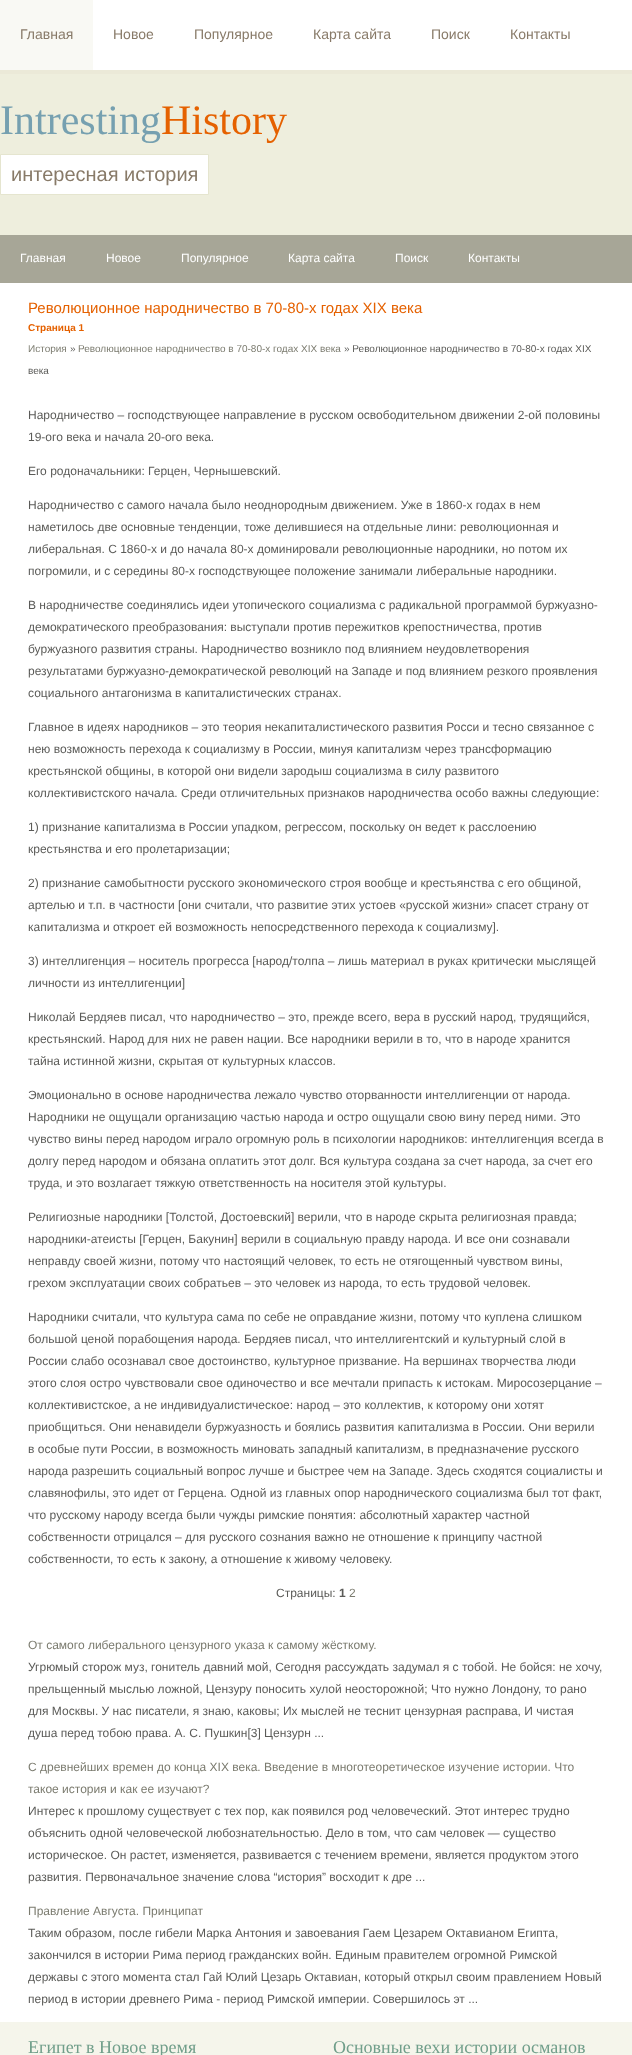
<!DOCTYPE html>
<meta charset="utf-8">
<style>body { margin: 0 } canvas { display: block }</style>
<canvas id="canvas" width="632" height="2055"></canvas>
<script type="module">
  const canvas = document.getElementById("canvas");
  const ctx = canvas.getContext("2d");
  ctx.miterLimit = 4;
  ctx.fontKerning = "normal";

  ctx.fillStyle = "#eeeedd";
  ctx.fillRect(0, 0, 632, 2055);
  ctx.fillStyle = "#ebe9d8";
  ctx.fillRect(0, 70, 632, 4);
  ctx.fillStyle = "#ffffff";
  ctx.fillRect(93, 0, 539, 70);
  ctx.fillStyle = "#f9f9f4";
  ctx.fillRect(0, 0, 93, 70);
  ctx.font = "14px Liberation Sans";
  ctx.fillStyle = "#887a68";
  ctx.fillText("Главная", 20, 39);
  ctx.fillText("Новое", 113, 39);
  ctx.fillText("Популярное", 194, 39);
  ctx.fillText("Карта сайта", 313, 39);
  ctx.fillText("Поиск", 431, 39);
  ctx.fillText("Контакты", 510, 39);
  ctx.font = "42px Liberation Serif";
  ctx.fillStyle = "#76a0b0";
  ctx.fillText("Intresting", 0, 134);
  ctx.fillStyle = "#e56100";
  ctx.fillText("History", 161, 134);
  ctx.fillStyle = "#ffffff";
  ctx.beginPath();
  ctx.rect(0.5, 154.5, 208, 40);
  ctx.fill();
  ctx.strokeStyle = "#e5e5cf";
  ctx.stroke();
  ctx.font = "20px Liberation Sans";
  ctx.fillStyle = "#887a68";
  ctx.fillText("интересная история", 11, 181);
  ctx.fillStyle = "#a7a697";
  ctx.fillRect(0, 235, 632, 48);
  ctx.font = "12px Liberation Sans";
  ctx.fillStyle = "#ffffff";
  ctx.fillText("Главная", 20, 262);
  ctx.fillText("Новое", 106, 262);
  ctx.fillText("Популярное", 181, 262);
  ctx.fillText("Карта сайта", 288, 262);
  ctx.fillText("Поиск", 395, 262);
  ctx.fillText("Контакты", 468, 262);
  ctx.fillRect(0, 283, 632, 1739);
  ctx.font = "15px Liberation Sans";
  ctx.fillStyle = "#e56100";
  ctx.fillText("Революционное народничество в 70-80-х годах XIX века", 28, 313);
  ctx.font = "bold 10px Liberation Sans";
  ctx.fillText("Страница 1", 28, 331);
  ctx.font = "10px Liberation Sans";
  ctx.fillStyle = "#7b7b6f";
  ctx.fillText("История", 28, 352);
  ctx.fillStyle = "#5b5b58";
  ctx.fillText("»", 70, 352);
  ctx.fillStyle = "#7b7b6f";
  ctx.fillText("Революционное народничество в 70-80-х годах XIX века", 78, 352);
  ctx.fillStyle = "#5b5b58";
  ctx.fillText("» Революционное народничество в 70-80-х годах XIX", 344, 352);
  ctx.fillText("века", 28, 374);
  ctx.font = "12px Liberation Sans";
  ctx.fillText("Народничество – господствующее направление в русском освободительном движении 2-ой половины", 28, 419);
  ctx.fillText("19-ого века и начала 20-ого века.", 28, 441);
  ctx.fillText("Его родоначальники: Герцен, Чернышевский.", 28, 475);
  ctx.fillText("Народничество с самого начала было неоднородным движением. Уже в 1860-х годах в нем", 28, 509);
  ctx.fillText("наметилось две основные тенденции, тоже делившиеся на отдельные лини: революционная и", 28, 531);
  ctx.fillText("либеральная. С 1860-х и до начала 80-х доминировали революционные народники, но потом их", 28, 553);
  ctx.fillText("погромили, и с середины 80-х господствующее положение занимали либеральные народники.", 28, 575);
  ctx.fillText("В народничестве соединялись идеи утопического социализма с радикальной программой буржуазно-", 28, 609);
  ctx.fillText("демократического преобразования: выступали против пережитков крепостничества, против", 28, 631);
  ctx.fillText("буржуазного развития страны. Народничество возникло под влиянием неудовлетворения", 28, 653);
  ctx.fillText("результатами буржуазно-демократической революций на Западе и под влиянием резкого проявления", 28, 675);
  ctx.fillText("социального антагонизма в капиталистических странах.", 28, 697);
  ctx.fillText("Главное в идеях народников – это теория некапиталистического развития Росси и тесно связанное с", 28, 731);
  ctx.fillText("нею возможность перехода к социализму в России, минуя капитализм через трансформацию", 28, 753);
  ctx.fillText("крестьянской общины, в которой они видели зародыш социализма в силу развитого", 28, 775);
  ctx.fillText("коллективистского начала. Среди отличительных признаков народничества особо важны следующие:", 28, 797);
  ctx.fillText("1) признание капитализма в России упадком, регрессом, поскольку он ведет к расслоению", 28, 831);
  ctx.fillText("крестьянства и его пролетаризации;", 28, 853);
  ctx.fillText("2) признание самобытности русского экономического строя вообще и крестьянства с его общиной,", 28, 887);
  ctx.fillText("артелью и т.п. в частности [они считали, что развитие этих устоев «русской жизни» спасет страну от", 28, 909);
  ctx.fillText("капитализма и откроет ей возможность непосредственного перехода к социализму].", 28, 931);
  ctx.fillText("3) интеллигенция – носитель прогресса [народ/толпа – лишь материал в руках критически мыслящей", 28, 965);
  ctx.fillText("личности из интеллигенции]", 28, 987);
  ctx.fillText("Николай Бердяев писал, что народничество – это, прежде всего, вера в русский народ, трудящийся,", 28, 1021);
  ctx.fillText("крестьянский. Народ для них не равен нации. Все народники верили в то, что в народе хранится", 28, 1043);
  ctx.fillText("тайна истинной жизни, скрытая от культурных классов.", 28, 1065);
  ctx.fillText("Эмоционально в основе народничества лежало чувство оторванности интеллигенции от народа.", 28, 1099);
  ctx.fillText("Народники не ощущали организацию частью народа и остро ощущали свою вину перед ними. Это", 28, 1121);
  ctx.fillText("чувство вины перед народом играло огромную роль в психологии народников: интеллигенция всегда в", 28, 1143);
  ctx.fillText("долгу перед народом и обязана оплатить этот долг. Вся культура создана за счет народа, за счет его", 28, 1165);
  ctx.fillText("труда, и это возлагает тяжкую ответственность на носителя этой культуры.", 28, 1187);
  ctx.fillText("Религиозные народники [Толстой, Достоевский] верили, что в народе скрыта религиозная правда;", 28, 1221);
  ctx.fillText("народники-атеисты [Герцен, Бакунин] верили в социальную правду народа. И все они сознавали", 28, 1243);
  ctx.fillText("неправду своей жизни, потому что настоящий человек, то есть не отягощенный чувством вины,", 28, 1265);
  ctx.fillText("грехом эксплуатации своих собратьев – это человек из народа, то есть трудовой человек.", 28, 1287);
  ctx.fillText("Народники считали, что культура сама по себе не оправдание жизни, потому что куплена слишком", 28, 1321);
  ctx.fillText("большой ценой порабощения народа. Бердяев писал, что интеллигентский и культурный слой в", 28, 1343);
  ctx.fillText("России слабо осознавал свое достоинство, культурное призвание. На вершинах творчества люди", 28, 1365);
  ctx.fillText("этого слоя остро чувствовали свое одиночество и все мечтали припасть к истокам. Миросозерцание –", 28, 1387);
  ctx.fillText("коллективистское, а не индивидуалистическое: народ – это коллектив, к которому они хотят", 28, 1409);
  ctx.fillText("приобщиться. Они ненавидели буржуазность и боялись развития капитализма в России. Они верили", 28, 1431);
  ctx.fillText("в особые пути России, в возможность миновать западный капитализм, в предназначение русского", 28, 1453);
  ctx.fillText("народа разрешить социальный вопрос лучше и быстрее чем на Западе. Здесь сходятся социалисты и", 28, 1475);
  ctx.fillText("славянофилы, это идет от Герцена. Одной из главных опор народнического социализма был тот факт,", 28, 1497);
  ctx.fillText("что русскому народу всегда были чужды римские понятия: абсолютный характер частной", 28, 1519);
  ctx.fillText("собственности отрицался – для русского сознания важно не отношение к принципу частной", 28, 1541);
  ctx.fillText("собственности, то есть к закону, а отношение к живому человеку.", 28, 1563);
  ctx.fillText("Страницы:", 276, 1597);
  ctx.font = "bold 12px Liberation Sans";
  ctx.fillText("1", 339, 1597);
  ctx.font = "12px Liberation Sans";
  ctx.fillStyle = "#7b7b6f";
  ctx.fillText("2", 349, 1597);
  ctx.fillText("От самого либерального цензурного указа к самому жёсткому.", 28, 1649);
  ctx.fillStyle = "#5b5b58";
  ctx.fillText("Угрюмый сторож муз, гонитель давний мой, Сегодня рассуждать задумал я с тобой. Не бойся: не хочу,", 28, 1671);
  ctx.fillText("прельщенный мыслью ложной, Цензуру поносить хулой неосторожной; Что нужно Лондону, то рано", 28, 1693);
  ctx.fillText("для Москвы. У нас писатели, я знаю, каковы; Их мыслей не теснит цензурная расправа, И чистая", 28, 1715);
  ctx.fillText("душа перед тобою права. А. С. Пушкин[3] Цензурн ...", 28, 1737);
  ctx.fillStyle = "#7b7b6f";
  ctx.fillText("С древнейших времен до конца XIX века. Введение в многотеоретическое изучение истории. Что", 28, 1771);
  ctx.fillText("такое история и как ее изучают?", 28, 1793);
  ctx.fillStyle = "#5b5b58";
  ctx.fillText("Интерес к прошлому существует с тех пор, как появился род человеческий. Этот интерес трудно", 28, 1815);
  ctx.fillText("объяснить одной человеческой любознательностью. Дело в том, что сам человек — существо", 28, 1837);
  ctx.fillText("историческое. Он растет, изменяется, развивается с течением времени, является продуктом этого", 28, 1859);
  ctx.fillText("развития. Первоначальное значение слова “история” восходит к дре ...", 28, 1881);
  ctx.fillStyle = "#7b7b6f";
  ctx.fillText("Правление Августа. Принципат", 28, 1915);
  ctx.fillStyle = "#5b5b58";
  ctx.fillText("Таким образом, после гибели Марка Антония и завоевания Гаем Цезарем Октавианом Египта,", 28, 1937);
  ctx.fillText("закончился в истории Рима период гражданских войн. Единым правителем огромной Римской", 28, 1959);
  ctx.fillText("державы с этого момента стал Гай Юлий Цезарь Октавиан, который открыл своим правлением Новый", 28, 1981);
  ctx.fillText("период в истории древнего Рима - период Римской империи. Совершилось эт ...", 28, 2003);
  ctx.fillStyle = "#f5f5eb";
  ctx.fillRect(0, 2022, 632, 33);
  ctx.font = "18px Liberation Serif";
  ctx.fillStyle = "#709e8a";
  ctx.fillText("Египет в Новое время", 28, 2053);
  ctx.fillText("Основные вехи истории османов", 333, 2053);
</script>
